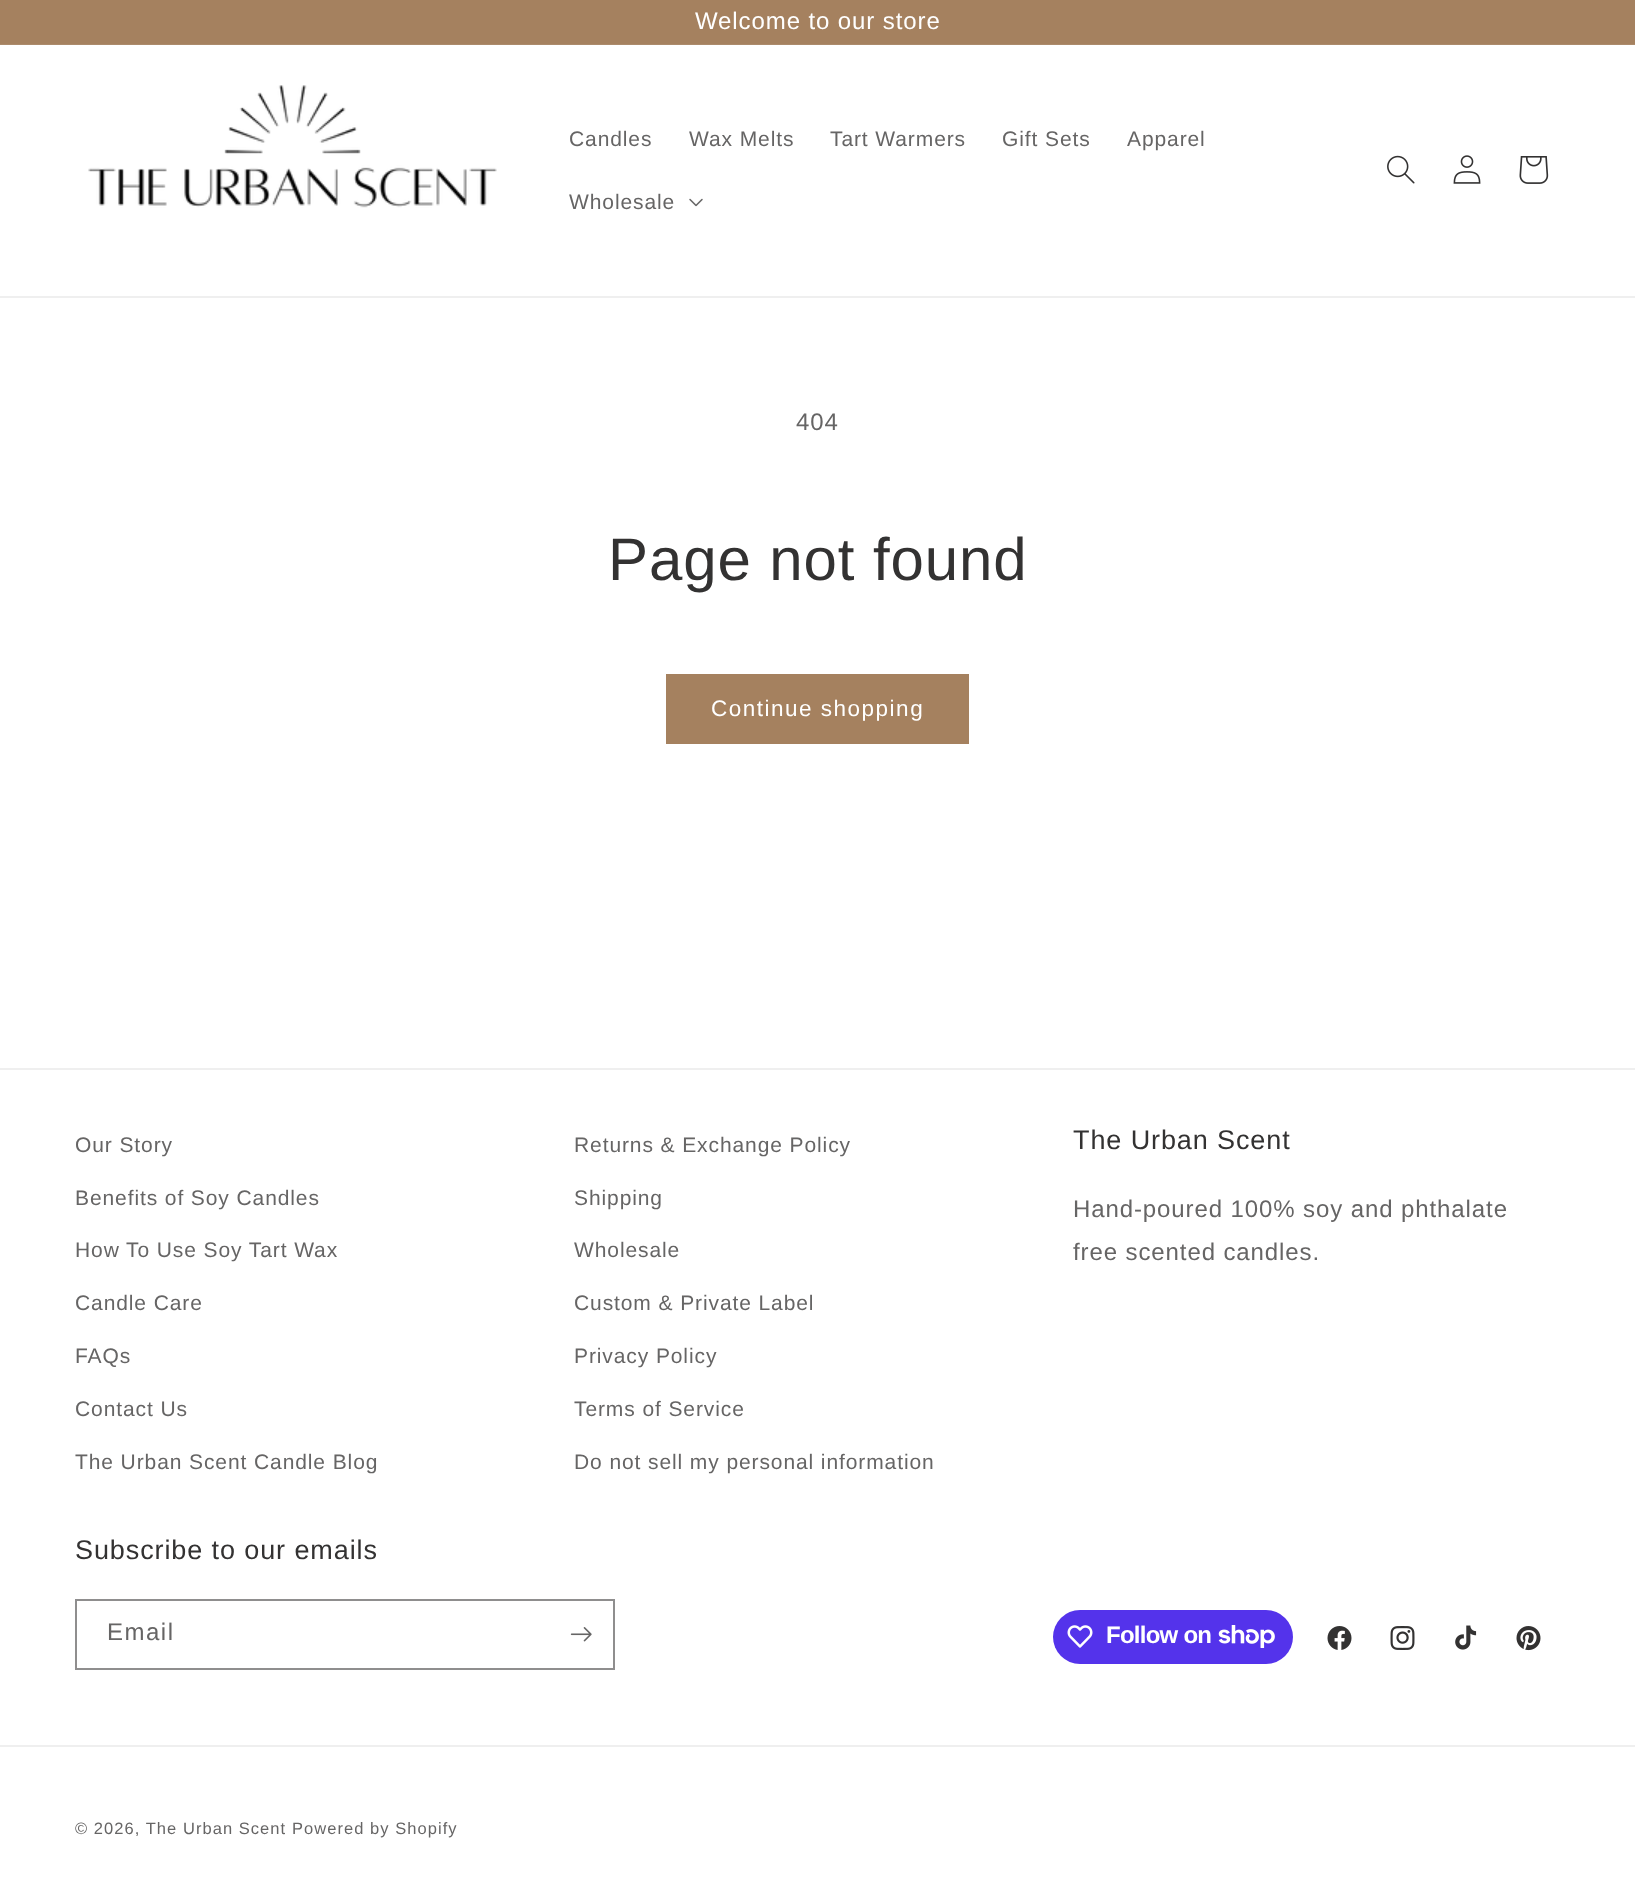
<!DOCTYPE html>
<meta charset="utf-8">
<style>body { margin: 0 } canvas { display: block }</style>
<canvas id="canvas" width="1635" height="1897"></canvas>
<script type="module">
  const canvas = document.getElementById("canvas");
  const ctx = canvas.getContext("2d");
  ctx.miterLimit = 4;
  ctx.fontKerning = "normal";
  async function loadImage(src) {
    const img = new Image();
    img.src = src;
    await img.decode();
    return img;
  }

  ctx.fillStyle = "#ffffff";
  ctx.fillRect(0, 0, 1635, 1897);
  ctx.fillStyle = "#a5815f";
  ctx.fillRect(0, 0, 1635, 44);
  ctx.fillStyle = "#ac8b6c";
  ctx.fillRect(0, 44, 1635, 1);
  ctx.letterSpacing = "0.9px";
  ctx.font = "24px Liberation Sans";
  ctx.fillStyle = "#ffffff";
  ctx.fillText("Welcome to our store", 695, 29);
  ctx.fillStyle = "#efefef";
  ctx.fillRect(0, 296, 1635, 2);
  ctx.drawImage(await loadImage("img1.png"), 88, 85, 409, 123);
  ctx.font = "21px Liberation Sans";
  ctx.fillStyle = "#666565";
  ctx.fillText("Candles", 569, 146);
  ctx.fillText("Wax Melts", 689, 146);
  ctx.fillText("Tart Warmers", 830, 146);
  ctx.fillText("Gift Sets", 1002, 146);
  ctx.fillText("Apparel", 1127, 146);
  ctx.fillText("Wholesale", 569, 209);
  ctx.drawImage(await loadImage("img2.png"), 689, 198, 14, 9);
  ctx.drawImage(await loadImage("img3.png"), 1387, 155, 28, 29);
  ctx.drawImage(await loadImage("img4.png"), 1453, 155, 28, 29);
  ctx.drawImage(await loadImage("img5.png"), 1519, 156, 30, 28);
  ctx.font = "24px Liberation Sans";
  ctx.fillText("404", 796, 430);
  ctx.font = "60px Liberation Sans";
  ctx.fillStyle = "#333232";
  ctx.fillText("Page not found", 608, 580);
  ctx.fillStyle = "#a5815f";
  ctx.fillRect(666, 674, 303, 70);
  ctx.letterSpacing = "1.5px";
  ctx.font = "22.5px Liberation Sans";
  ctx.fillStyle = "#ffffff";
  ctx.fillText("Continue shopping", 711, 716);
  ctx.fillStyle = "#efefef";
  ctx.fillRect(0, 1068, 1635, 2);
  ctx.letterSpacing = "0.9px";
  ctx.font = "21px Liberation Sans";
  ctx.fillStyle = "#666565";
  ctx.fillText("Our Story", 75, 1152);
  ctx.fillText("Benefits of Soy Candles", 75, 1205);
  ctx.fillText("How To Use Soy Tart Wax", 75, 1257);
  ctx.fillText("Candle Care", 75, 1310);
  ctx.fillText("FAQs", 75, 1363);
  ctx.fillText("Contact Us", 75, 1416);
  ctx.fillText("The Urban Scent Candle Blog", 75, 1469);
  ctx.fillText("Returns & Exchange Policy", 574, 1152);
  ctx.fillText("Shipping", 574, 1205);
  ctx.fillText("Wholesale", 574, 1257);
  ctx.fillText("Custom & Private Label", 574, 1310);
  ctx.fillText("Privacy Policy", 574, 1363);
  ctx.fillText("Terms of Service", 574, 1416);
  ctx.fillText("Do not sell my personal information", 574, 1469);
  ctx.font = "27px Liberation Sans";
  ctx.fillStyle = "#333232";
  ctx.fillText("The Urban Scent", 1073, 1149);
  ctx.font = "24px Liberation Sans";
  ctx.fillStyle = "#666565";
  ctx.fillText("Hand-poured 100% soy and phthalate", 1073, 1217);
  ctx.fillText("free scented candles.", 1073, 1260);
  ctx.font = "27px Liberation Sans";
  ctx.fillStyle = "#333232";
  ctx.fillText("Subscribe to our emails", 75, 1559);
  ctx.strokeStyle = "#8f8e8e";
  ctx.lineWidth = 2;
  ctx.strokeRect(76, 1600, 538, 69);
  ctx.letterSpacing = "1.5px";
  ctx.font = "24px Liberation Sans";
  ctx.fillStyle = "#666565";
  ctx.fillText("Email", 107, 1640);
  ctx.drawImage(await loadImage("img6.png"), 570, 1627, 22, 15);
  ctx.fillStyle = "#5433eb";
  ctx.beginPath();
  ctx.roundRect(1053, 1610, 240, 54, 27);
  ctx.fill();
  ctx.drawImage(await loadImage("img7.png"), 1067, 1625, 26, 23);
  ctx.letterSpacing = "-0.75px";
  ctx.font = "bold 24px Liberation Sans";
  ctx.fillStyle = "#ffffff";
  ctx.fillText("Follow on", 1106, 1643);
  ctx.drawImage(await loadImage("img8.png"), 1218, 1625, 57, 23);
  ctx.drawImage(await loadImage("img9.png"), 1327, 1626, 25, 24);
  ctx.drawImage(await loadImage("img10.png"), 1390, 1626, 25, 24);
  ctx.drawImage(await loadImage("img11.png"), 1455, 1625, 22, 25);
  ctx.drawImage(await loadImage("img12.png"), 1516, 1626, 25, 25);
  ctx.fillStyle = "#efefef";
  ctx.fillRect(0, 1745, 1635, 2);
  ctx.letterSpacing = "1.05px";
  ctx.font = "16.5px Liberation Sans";
  ctx.fillStyle = "#666565";
  ctx.fillText("© 2026, The Urban Scent", 75, 1834);
  ctx.fillText("Powered by Shopify", 292, 1834);
</script>
